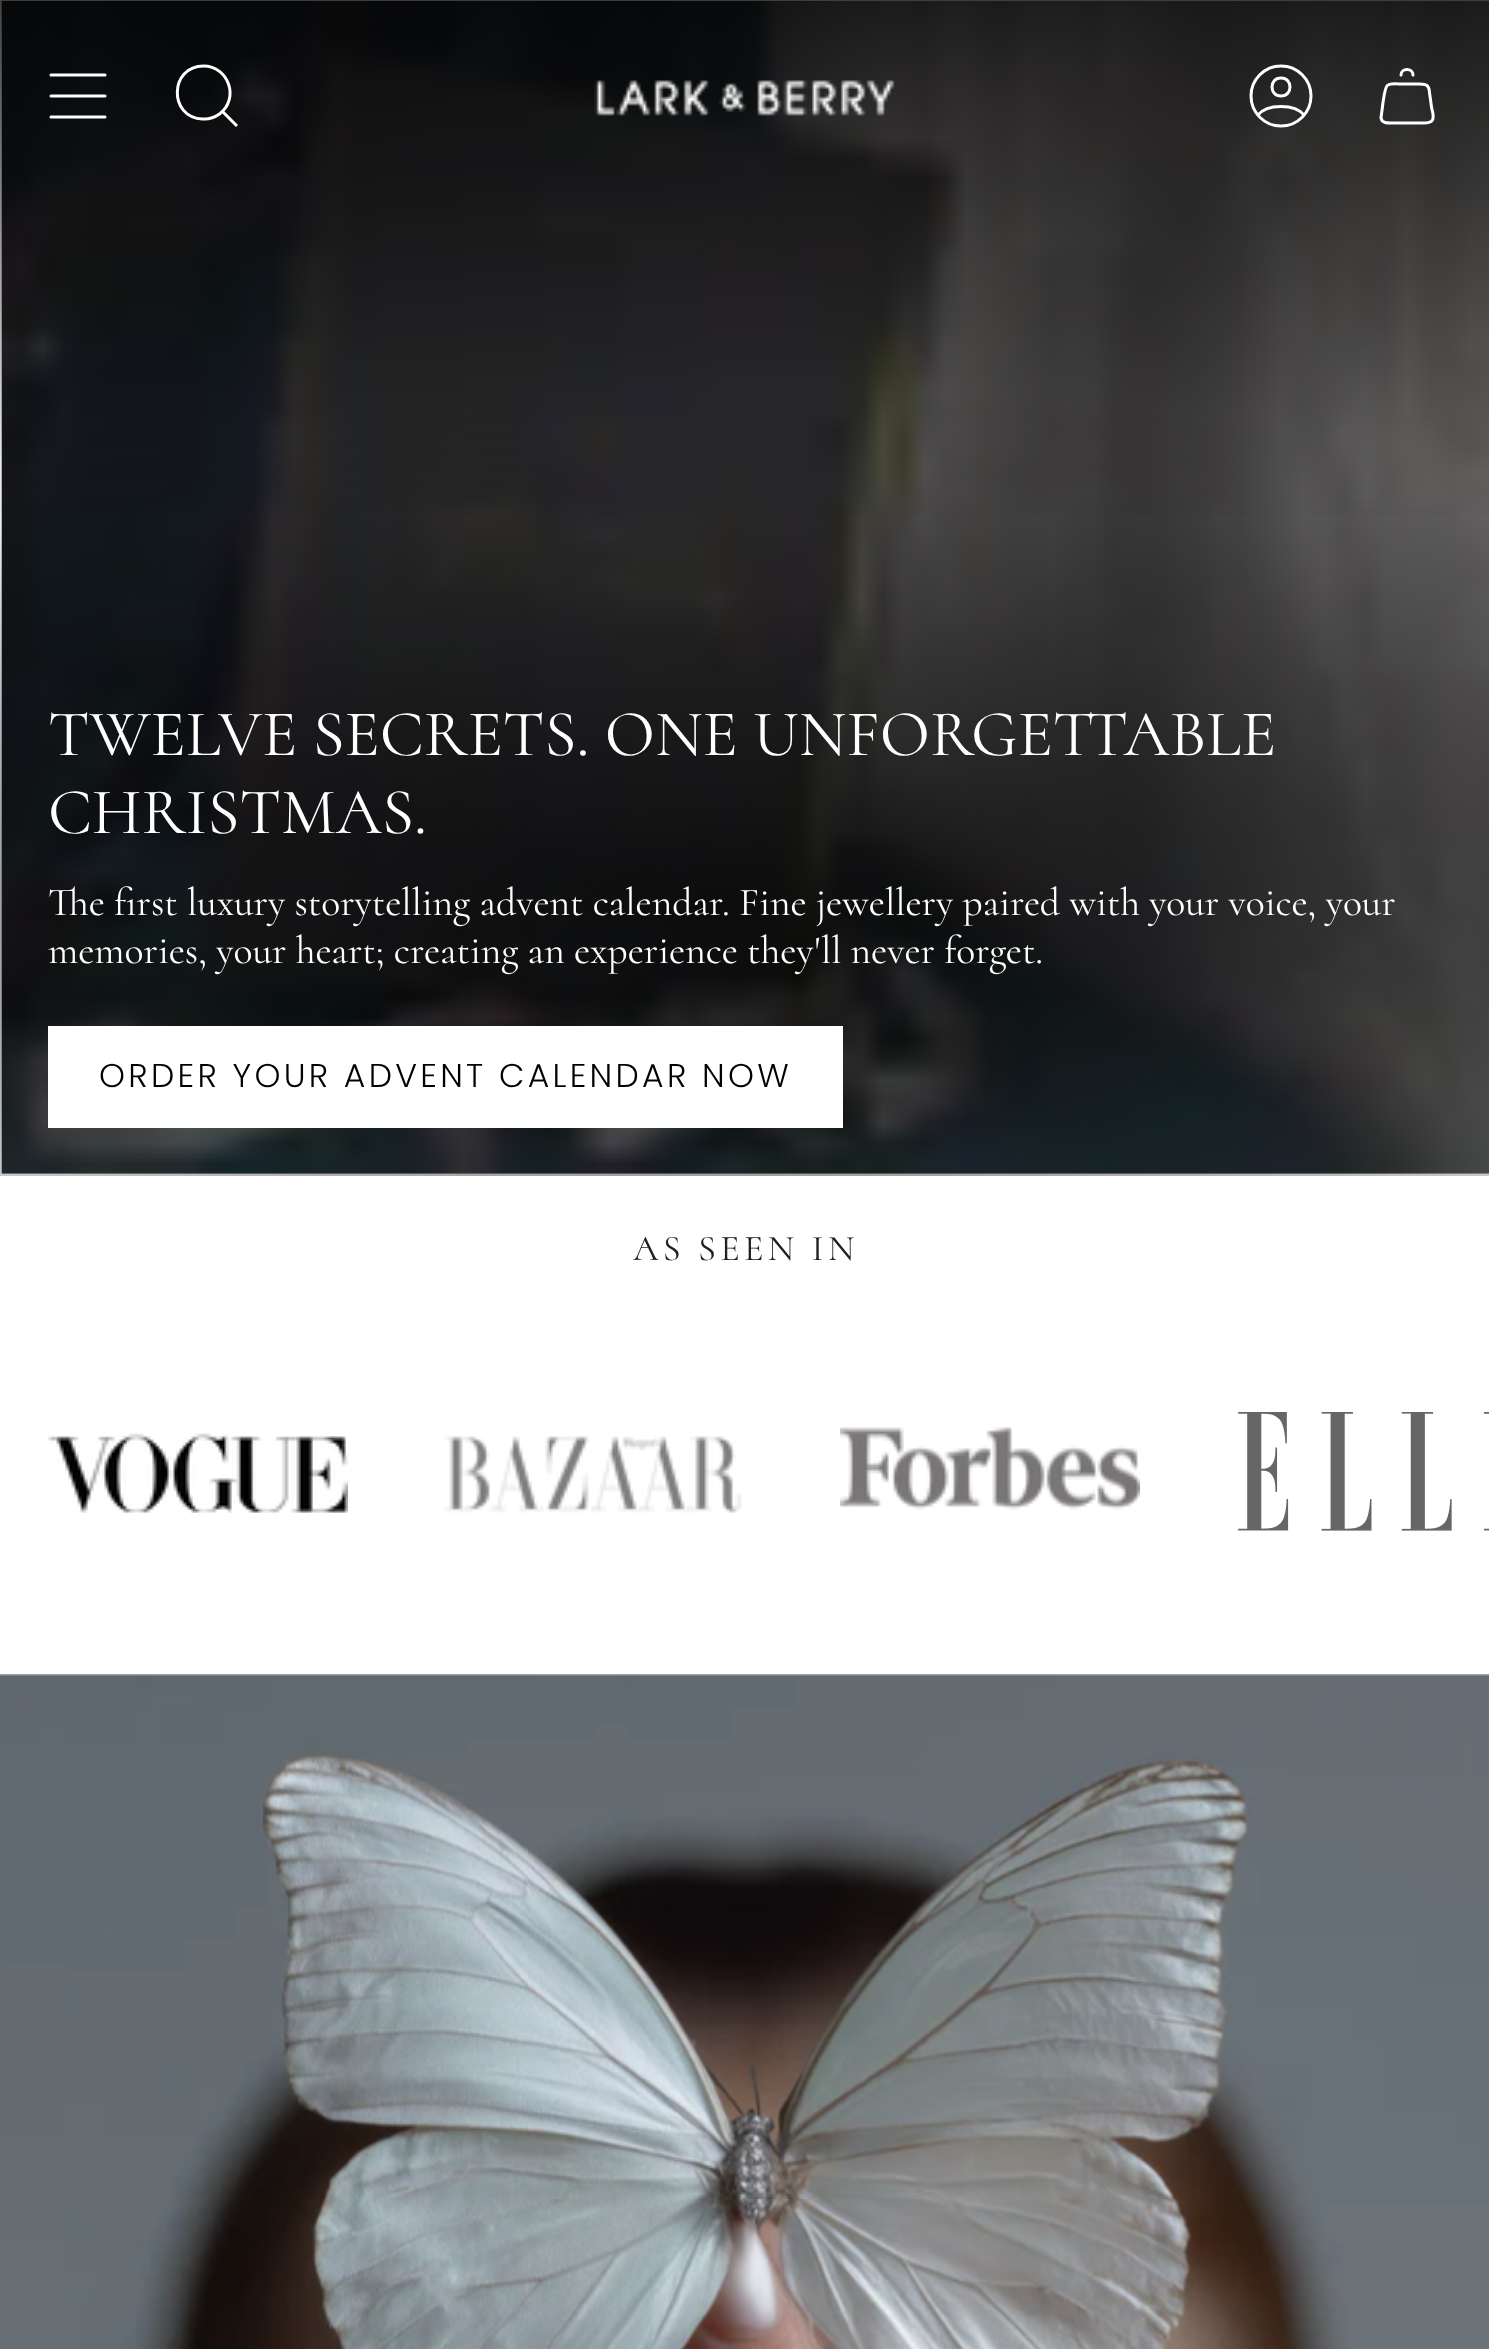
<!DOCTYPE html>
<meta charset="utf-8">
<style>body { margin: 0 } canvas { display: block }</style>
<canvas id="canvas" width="1489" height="2349"></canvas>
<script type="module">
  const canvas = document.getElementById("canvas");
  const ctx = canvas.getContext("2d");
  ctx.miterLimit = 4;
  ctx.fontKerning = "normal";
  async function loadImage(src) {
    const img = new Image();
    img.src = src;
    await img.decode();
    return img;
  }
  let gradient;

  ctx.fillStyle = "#ffffff";
  ctx.fillRect(0, 0, 1489, 2349);
  ctx.drawImage(await loadImage("img2.png"), 1, 0, 1488, 1174);
  gradient = ctx.createLinearGradient(746, 0, 746, 531);
  gradient.addColorStop(0, "rgba(0, 0, 0, 0.75)");
  gradient.addColorStop(1, "rgba(0, 0, 0, 0)");
  ctx.fillStyle = gradient;
  ctx.fillRect(0, 0, 1489, 516);
  ctx.beginPath();
  ctx.moveTo(51, 75);
  ctx.lineTo(105, 75);
  ctx.moveTo(51, 96);
  ctx.lineTo(105, 96);
  ctx.moveTo(51, 117);
  ctx.lineTo(105, 117);
  ctx.strokeStyle = "#ffffff";
  ctx.lineWidth = 3;
  ctx.lineCap = "round";
  ctx.lineJoin = "round";
  ctx.stroke();
  ctx.beginPath();
  ctx.moveTo(203.5, 66);
  ctx.bezierCurveTo(228.5, 66, 240, 98.5, 219.5, 114);
  ctx.bezierCurveTo(214.5, 117.5, 208.5, 119.5, 202.5, 119);
  ctx.bezierCurveTo(168, 117.5, 169.5, 66, 203.5, 66);
  ctx.closePath();
  ctx.moveTo(222.5, 111.5);
  ctx.lineTo(237, 126);
  ctx.lineCap = "butt";
  ctx.lineJoin = "miter";
  ctx.stroke();
  ctx.drawImage(await loadImage("img1.png"), 594, 80, 301, 36);
  ctx.beginPath();
  ctx.moveTo(1281, 66);
  ctx.bezierCurveTo(1264.5, 66, 1251, 79.5, 1251, 96);
  ctx.bezierCurveTo(1251, 112.5, 1264.5, 126, 1281, 126);
  ctx.bezierCurveTo(1297.5, 126, 1311, 112.5, 1311, 96);
  ctx.bezierCurveTo(1311, 79.5, 1297.5, 66, 1281, 66);
  ctx.closePath();
  ctx.lineCap = "round";
  ctx.lineJoin = "round";
  ctx.stroke();
  ctx.beginPath();
  ctx.moveTo(1258, 115);
  ctx.bezierCurveTo(1267, 103.5, 1295, 103.5, 1304, 115);
  ctx.moveTo(1281, 96);
  ctx.bezierCurveTo(1293, 96, 1293, 78, 1281, 78);
  ctx.bezierCurveTo(1269, 78, 1269, 96, 1281, 96);
  ctx.closePath();
  ctx.stroke();
  ctx.beginPath();
  ctx.moveTo(1429, 89);
  ctx.lineTo(1431.5, 107);
  ctx.bezierCurveTo(1432, 111, 1434.5, 116, 1432.5, 120);
  ctx.bezierCurveTo(1430, 124, 1424.5, 123, 1420.5, 123);
  ctx.lineTo(1393.5, 123);
  ctx.bezierCurveTo(1389, 123, 1382, 124, 1381, 118);
  ctx.lineTo(1383, 102.5);
  ctx.bezierCurveTo(1386.5, 80.5, 1384.5, 84, 1407, 84);
  ctx.lineTo(1417.5, 84);
  ctx.bezierCurveTo(1422, 84, 1428, 83.5, 1429, 89);
  ctx.closePath();
  ctx.moveTo(1413, 75);
  ctx.bezierCurveTo(1413, 67.5, 1401, 67.5, 1401, 75);
  ctx.stroke();
  ctx.save();
  ctx.beginPath();
  ctx.rect(0, 0, 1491, 1176);
  ctx.clip();
  gradient = ctx.createRadialGradient(747, 2578.92, 0, 747, 2578.92, 2109);
  gradient.addColorStop(0, "rgba(0, 0, 0, 0.75)");
  gradient.addColorStop(0.7, "rgba(0, 0, 0, 0)");
  ctx.fillStyle = gradient;
  ctx.beginPath();
  ctx.ellipse(747, 910.5, 1491, 526.5, 0, 0, Math.PI * 2);
  ctx.save();
  ctx.clip();
  ctx.scale(1, 745 / 2109);
  ctx.fillRect(0, 0, 1489, 6650);
  ctx.restore();
  ctx.restore();
  ctx.font = "65.5px Cormorant";
  ctx.fillStyle = "#ffffff";
  ctx.fillText("TWELVE SECRETS. ONE UNFORGETTABLE", 48, 755);
  ctx.fillText("CHRISTMAS.", 48, 833);
  ctx.font = "39.6px Cormorant";
  ctx.fillText("The first luxury storytelling advent calendar. Fine jewellery paired with your voice, your", 48, 915);
  ctx.fillText("memories, your heart; creating an experience they'll never forget.", 48, 963);
  ctx.fillRect(48, 1026, 795, 102);
  ctx.letterSpacing = "3.3px";
  ctx.font = "300 33px Poppins";
  ctx.fillStyle = "#000000";
  ctx.fillText("ORDER YOUR ADVENT CALENDAR NOW", 99, 1087);
  ctx.letterSpacing = "4.4px";
  ctx.font = "36.25px Cormorant";
  ctx.fillStyle = "#212121";
  ctx.fillText("AS SEEN IN", 633, 1260);
  ctx.drawImage(await loadImage("img3.png"), 48, 1433, 300, 80);
  ctx.drawImage(await loadImage("img4.png"), 444, 1436, 298, 77);
  ctx.drawImage(await loadImage("img5.png"), 840, 1427, 300, 83);
  ctx.drawImage(await loadImage("img6.png"), 1238, 1412, 251, 119);
  ctx.drawImage(await loadImage("img7.png"), 0, 1674, 1489, 675);
</script>
